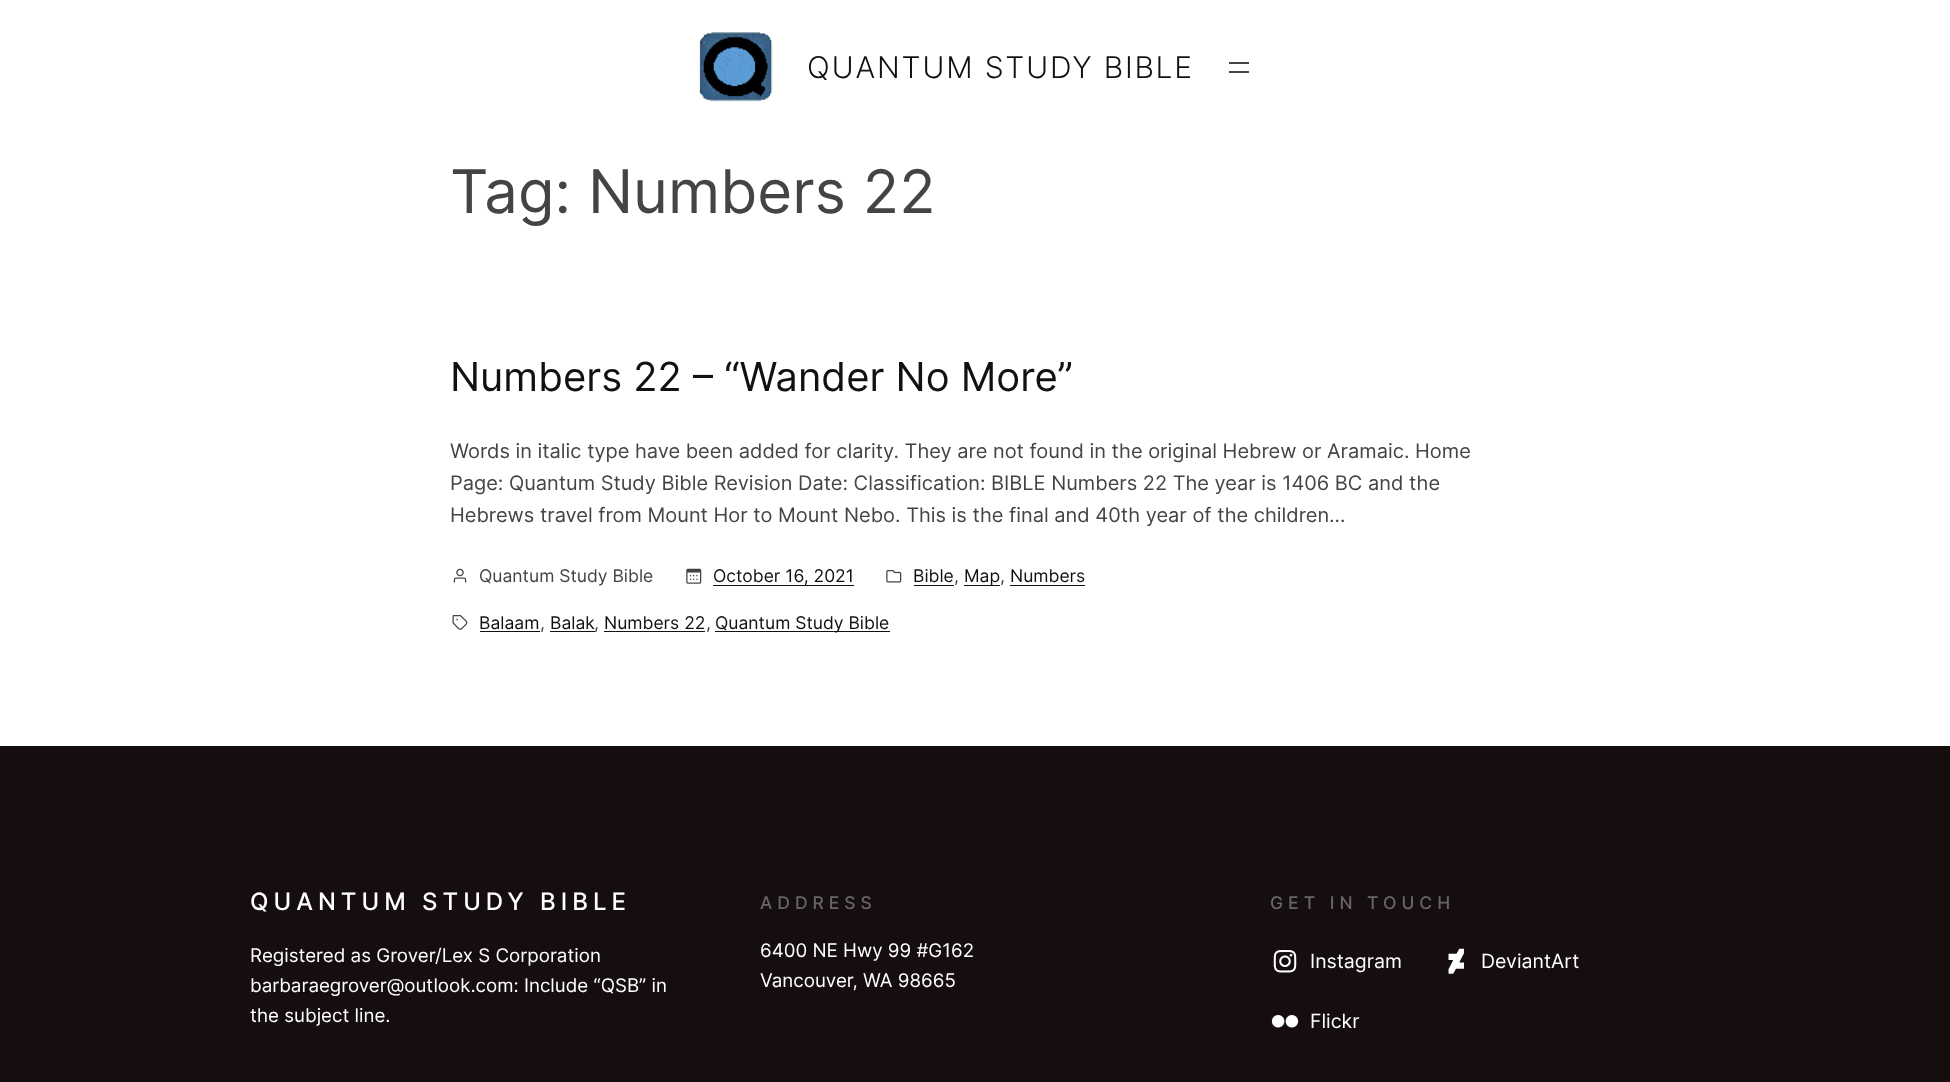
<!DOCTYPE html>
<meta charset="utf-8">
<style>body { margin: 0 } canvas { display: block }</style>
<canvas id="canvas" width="1950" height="1082"></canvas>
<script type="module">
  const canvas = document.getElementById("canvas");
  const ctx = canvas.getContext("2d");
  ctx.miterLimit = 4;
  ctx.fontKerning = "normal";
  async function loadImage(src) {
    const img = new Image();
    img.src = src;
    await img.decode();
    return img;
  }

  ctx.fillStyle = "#ffffff";
  ctx.fillRect(0, 0, 1950, 1082);
  ctx.drawImage(await loadImage("img1.png"), 699, 32, 74, 70);
  ctx.letterSpacing = "1.75px";
  ctx.font = "300 30px Inter";
  ctx.fillStyle = "#111111";
  ctx.fillText("QUANTUM STUDY BIBLE", 807, 78);
  ctx.fillStyle = "#444444";
  ctx.fillRect(1229, 62, 20, 2);
  ctx.fillRect(1229, 71, 20, 2);
  ctx.letterSpacing = "0px";
  ctx.font = "60px Inter";
  ctx.fillText("Tag: Numbers 22", 450, 213);
  ctx.font = "40px Inter";
  ctx.fillStyle = "#111111";
  ctx.fillText("Numbers 22 – “Wander No More”", 450, 391);
  ctx.font = "20px Inter";
  ctx.fillStyle = "#444444";
  ctx.fillText("Words in italic type have been added for clarity. They are not found in the original Hebrew or Aramaic. Home", 450, 458);
  ctx.fillText("Page: Quantum Study Bible Revision Date: Classification: BIBLE Numbers 22 The year is 1406 BC and the", 450, 490);
  ctx.fillText("Hebrews travel from Mount Hor to Mount Nebo. This is the final and 40th year of the children…", 450, 522);
  ctx.drawImage(await loadImage("img2.png"), 453, 568, 14, 15);
  ctx.font = "17.5px Inter";
  ctx.fillText("Quantum Study Bible", 479, 582);
  ctx.drawImage(await loadImage("img3.png"), 686, 568, 16, 16);
  ctx.fillStyle = "#111111";
  ctx.fillRect(713, 585, 141, 1);
  ctx.fillText("October 16, 2021", 713, 582);
  ctx.drawImage(await loadImage("img4.png"), 886, 570, 16, 13);
  ctx.fillText("Bible", 913, 582);
  ctx.fillRect(914, 585, 40, 1);
  ctx.fillStyle = "#444444";
  ctx.fillText(",", 954, 582);
  ctx.fillStyle = "#111111";
  ctx.fillRect(964, 585, 36, 1);
  ctx.fillText("Map", 964, 582);
  ctx.fillStyle = "#444444";
  ctx.fillText(",", 1000, 582);
  ctx.fillStyle = "#111111";
  ctx.fillText("Numbers", 1010, 582);
  ctx.fillRect(1010, 585, 75, 1);
  ctx.drawImage(await loadImage("img5.png"), 452, 615, 16, 15);
  ctx.fillText("Balaam", 479, 629);
  ctx.fillRect(480, 631, 60, 1);
  ctx.fillStyle = "#444444";
  ctx.fillText(",", 540, 629);
  ctx.fillStyle = "#111111";
  ctx.fillText("Balak", 550, 629);
  ctx.fillRect(550, 631, 45, 1);
  ctx.fillStyle = "#444444";
  ctx.fillText(",", 594, 629);
  ctx.fillStyle = "#111111";
  ctx.fillText("Numbers 22", 604, 629);
  ctx.fillRect(604, 631, 101, 1);
  ctx.fillStyle = "#444444";
  ctx.fillText(",", 706, 629);
  ctx.fillStyle = "#111111";
  ctx.fillRect(715, 631, 175, 1);
  ctx.fillText("Quantum Study Bible", 715, 629);
  ctx.fillStyle = "#160e0e";
  ctx.fillRect(0, 746, 1950, 336);
  ctx.letterSpacing = "5px";
  ctx.font = "500 24px Inter";
  ctx.fillStyle = "#ffffff";
  ctx.fillText("QUANTUM STUDY BIBLE", 250, 910);
  ctx.letterSpacing = "0px";
  ctx.font = "18.75px Inter";
  ctx.fillText("Registered as Grover/Lex S Corporation", 250, 962);
  ctx.fillText("barbaraegrover@outlook.com: Include “QSB” in", 250, 992);
  ctx.fillText("the subject line.", 250, 1022);
  ctx.letterSpacing = "5px";
  ctx.font = "500 17.5px Inter";
  ctx.fillStyle = "#666666";
  ctx.fillText("ADDRESS", 760, 909);
  ctx.letterSpacing = "0px";
  ctx.font = "18.75px Inter";
  ctx.fillStyle = "#ffffff";
  ctx.fillText("6400 NE Hwy 99 #G162", 760, 957);
  ctx.fillText("Vancouver, WA 98665", 760, 987);
  ctx.letterSpacing = "5px";
  ctx.font = "500 17.5px Inter";
  ctx.fillStyle = "#666666";
  ctx.fillText("GET IN TOUCH", 1270, 909);
  ctx.drawImage(await loadImage("img6.png"), 1273, 950, 24, 23);
  ctx.letterSpacing = "0px";
  ctx.font = "19.5px Inter";
  ctx.fillStyle = "#ffffff";
  ctx.fillText("Instagram", 1310, 968);
  ctx.drawImage(await loadImage("img7.png"), 1448, 948, 16, 26);
  ctx.fillText("DeviantArt", 1481, 968);
  ctx.drawImage(await loadImage("img8.png"), 1271, 1015, 28, 13);
  ctx.fillText("Flickr", 1310, 1028);
</script>
